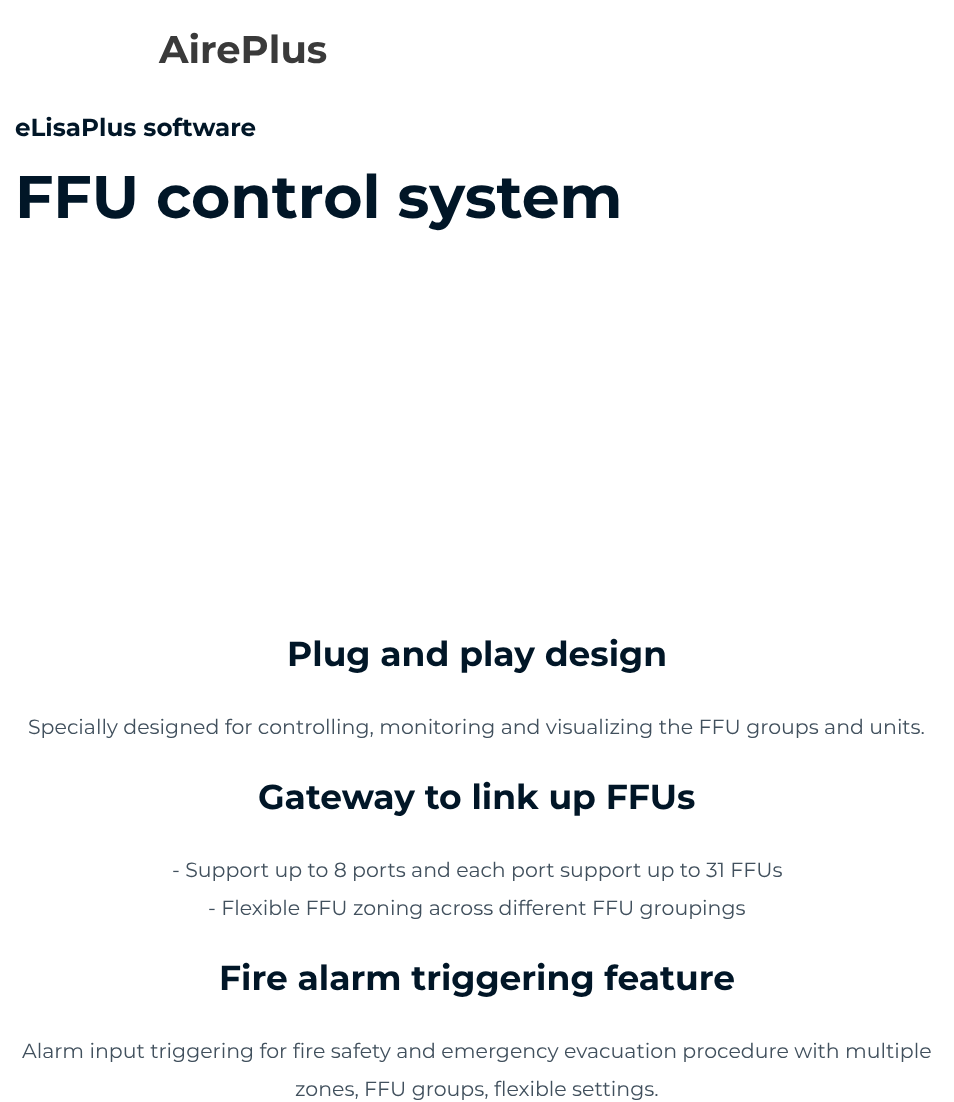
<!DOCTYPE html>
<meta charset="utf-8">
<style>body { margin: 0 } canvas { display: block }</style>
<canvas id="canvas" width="954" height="1102"></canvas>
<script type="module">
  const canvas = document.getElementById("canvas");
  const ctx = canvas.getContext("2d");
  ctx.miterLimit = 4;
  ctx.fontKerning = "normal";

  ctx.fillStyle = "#ffffff";
  ctx.fillRect(0, 0, 954, 1102);
  ctx.font = "bold 38.5px Montserrat";
  ctx.fillStyle = "#3a3a3a";
  ctx.fillText("AirePlus", 159, 63);
  ctx.font = "bold 24.6px Montserrat";
  ctx.fillStyle = "#011627";
  ctx.fillText("eLisaPlus software", 15, 136);
  ctx.font = "bold 60px Montserrat";
  ctx.fillText("FFU control system", 15, 218);
  ctx.font = "bold 34.5px Montserrat";
  ctx.fillText("Plug and play design", 287, 666);
  ctx.font = "20.5px Montserrat";
  ctx.fillStyle = "#41505d";
  ctx.fillText("Specially designed for controlling, monitoring and visualizing the FFU groups and units.", 28, 734);
  ctx.font = "bold 34.5px Montserrat";
  ctx.fillStyle = "#011627";
  ctx.fillText("Gateway to link up FFUs", 258, 809);
  ctx.font = "20.5px Montserrat";
  ctx.fillStyle = "#41505d";
  ctx.fillText("- Support up to 8 ports and each port support up to 31 FFUs", 172, 877);
  ctx.fillText("- Flexible FFU zoning across different FFU groupings", 208, 915);
  ctx.font = "bold 34.5px Montserrat";
  ctx.fillStyle = "#011627";
  ctx.fillText("Fire alarm triggering feature", 219, 990);
  ctx.font = "20.5px Montserrat";
  ctx.fillStyle = "#41505d";
  ctx.fillText("Alarm input triggering for fire safety and emergency evacuation procedure with multiple", 22, 1058);
  ctx.fillText("zones, FFU groups, flexible settings.", 295, 1096);
</script>
